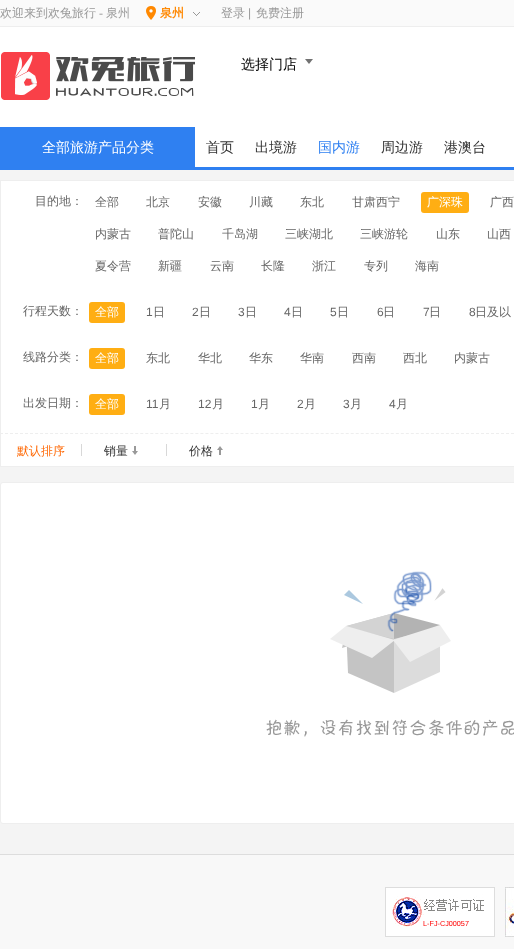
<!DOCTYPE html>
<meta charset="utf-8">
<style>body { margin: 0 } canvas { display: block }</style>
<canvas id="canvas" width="514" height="949"></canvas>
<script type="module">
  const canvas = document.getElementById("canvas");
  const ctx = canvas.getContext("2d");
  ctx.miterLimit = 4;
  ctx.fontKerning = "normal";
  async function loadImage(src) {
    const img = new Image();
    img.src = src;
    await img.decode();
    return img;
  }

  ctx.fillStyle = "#ffffff";
  ctx.fillRect(0, 0, 514, 949);
  ctx.fillStyle = "#fafafa";
  ctx.fillRect(0, 0, 514, 26);
  ctx.fillStyle = "#eeeeee";
  ctx.fillRect(0, 26, 514, 1);
  ctx.font = "500 12px WenQuanYi Zen Hei";
  ctx.fillStyle = "#999999";
  ctx.fillText("欢迎来到欢兔旅行", 0, 17);
  ctx.font = "12px Liberation Serif";
  ctx.fillText("-", 99, 17);
  ctx.font = "500 12px WenQuanYi Zen Hei";
  ctx.fillText("泉州", 106, 17);
  ctx.drawImage(await loadImage("img1.png"), 146, 6, 10, 14);
  ctx.font = "bold 12px WenQuanYi Zen Hei";
  ctx.fillStyle = "#ff8800";
  ctx.fillText("泉州", 160, 17);
  ctx.drawImage(await loadImage("img2.png"), 193, 12, 7, 4);
  ctx.font = "500 12px WenQuanYi Zen Hei";
  ctx.fillStyle = "#999999";
  ctx.fillText("登录", 221, 17);
  ctx.font = "12px Liberation Sans";
  ctx.fillText("|", 248, 17);
  ctx.font = "500 12px WenQuanYi Zen Hei";
  ctx.fillText("免费注册", 256, 17);
  ctx.drawImage(await loadImage("img3.png"), 1, 52, 194, 48);
  ctx.font = "500 14px WenQuanYi Zen Hei";
  ctx.fillStyle = "#000000";
  ctx.fillText("选择门店", 241, 69);
  ctx.fillStyle = "#727272";
  ctx.beginPath();
  ctx.moveTo(305, 59);
  ctx.lineTo(313, 59);
  ctx.lineTo(309, 64);
  ctx.closePath();
  ctx.fill();
  ctx.fillStyle = "#2f80f1";
  ctx.fillRect(0, 167, 514, 3);
  ctx.fillRect(0, 127, 195, 40);
  ctx.fillStyle = "#ffffff";
  ctx.fillText("全部旅游产品分类", 42, 152);
  ctx.fillStyle = "#333333";
  ctx.fillText("首页", 206, 152);
  ctx.fillText("出境游", 255, 152);
  ctx.fillStyle = "#2f80f1";
  ctx.fillText("国内游", 318, 152);
  ctx.fillStyle = "#333333";
  ctx.fillText("周边游", 381, 152);
  ctx.fillText("港澳台", 444, 152);
  ctx.fillStyle = "#f4f4f4";
  ctx.fillRect(0, 170, 514, 684);
  ctx.fillStyle = "#eeeeee";
  ctx.fillRect(0, 180, 514, 1);
  ctx.fillRect(0, 180, 1, 253);
  ctx.fillStyle = "#ffffff";
  ctx.fillRect(1, 181, 513, 285);
  ctx.font = "500 12px WenQuanYi Zen Hei";
  ctx.fillStyle = "#666666";
  ctx.fillText("目的地：", 35, 205);
  ctx.fillText("全部", 95, 206);
  ctx.fillText("北京", 146, 206);
  ctx.fillText("安徽", 198, 206);
  ctx.fillText("川藏", 249, 206);
  ctx.fillText("东北", 300, 206);
  ctx.fillText("甘肃西宁", 352, 206);
  ctx.fillStyle = "#ffae13";
  ctx.beginPath();
  ctx.roundRect(421, 192, 48, 21, 3);
  ctx.fill();
  ctx.fillStyle = "#ffffff";
  ctx.fillText("广深珠", 427, 206);
  ctx.fillStyle = "#666666";
  ctx.fillText("广西", 490, 206);
  ctx.fillText("内蒙古", 95, 238);
  ctx.fillText("普陀山", 158, 238);
  ctx.fillText("千岛湖", 222, 238);
  ctx.fillText("三峡湖北", 285, 238);
  ctx.fillText("三峡游轮", 360, 238);
  ctx.fillText("山东", 436, 238);
  ctx.fillText("山西", 487, 238);
  ctx.fillText("夏令营", 95, 270);
  ctx.fillText("新疆", 158, 270);
  ctx.fillText("云南", 210, 270);
  ctx.fillText("长隆", 261, 270);
  ctx.fillText("浙江", 312, 270);
  ctx.fillText("专列", 364, 270);
  ctx.fillText("海南", 415, 270);
  ctx.fillText("行程天数：", 23, 315);
  ctx.fillStyle = "#ffae13";
  ctx.beginPath();
  ctx.roundRect(89, 302, 36, 21, 3);
  ctx.fill();
  ctx.fillStyle = "#ffffff";
  ctx.fillText("全部", 95, 316);
  ctx.font = "12px Liberation Sans";
  ctx.fillStyle = "#666666";
  ctx.fillText("1", 146, 316);
  ctx.font = "500 12px WenQuanYi Zen Hei";
  ctx.fillText("日", 153, 316);
  ctx.font = "12px Liberation Sans";
  ctx.fillText("2", 192, 316);
  ctx.font = "500 12px WenQuanYi Zen Hei";
  ctx.fillText("日", 199, 316);
  ctx.font = "12px Liberation Sans";
  ctx.fillText("3", 238, 316);
  ctx.font = "500 12px WenQuanYi Zen Hei";
  ctx.fillText("日", 245, 316);
  ctx.font = "12px Liberation Sans";
  ctx.fillText("4", 284, 316);
  ctx.font = "500 12px WenQuanYi Zen Hei";
  ctx.fillText("日", 291, 316);
  ctx.font = "12px Liberation Sans";
  ctx.fillText("5", 330, 316);
  ctx.font = "500 12px WenQuanYi Zen Hei";
  ctx.fillText("日", 337, 316);
  ctx.font = "12px Liberation Sans";
  ctx.fillText("6", 377, 316);
  ctx.font = "500 12px WenQuanYi Zen Hei";
  ctx.fillText("日", 383, 316);
  ctx.font = "12px Liberation Sans";
  ctx.fillText("7", 423, 316);
  ctx.font = "500 12px WenQuanYi Zen Hei";
  ctx.fillText("日", 429, 316);
  ctx.font = "12px Liberation Sans";
  ctx.fillText("8", 469, 316);
  ctx.font = "500 12px WenQuanYi Zen Hei";
  ctx.fillText("日及以", 475, 316);
  ctx.fillText("线路分类：", 23, 361);
  ctx.fillStyle = "#ffae13";
  ctx.beginPath();
  ctx.roundRect(89, 348, 36, 21, 3);
  ctx.fill();
  ctx.fillStyle = "#ffffff";
  ctx.fillText("全部", 95, 362);
  ctx.fillStyle = "#666666";
  ctx.fillText("东北", 146, 362);
  ctx.fillText("华北", 198, 362);
  ctx.fillText("华东", 249, 362);
  ctx.fillText("华南", 300, 362);
  ctx.fillText("西南", 352, 362);
  ctx.fillText("西北", 403, 362);
  ctx.fillText("内蒙古", 454, 362);
  ctx.fillText("出发日期：", 23, 407);
  ctx.fillStyle = "#ffae13";
  ctx.beginPath();
  ctx.roundRect(89, 394, 36, 21, 3);
  ctx.fill();
  ctx.fillStyle = "#ffffff";
  ctx.fillText("全部", 95, 408);
  ctx.font = "12px Liberation Sans";
  ctx.fillStyle = "#666666";
  ctx.fillText("11", 146, 408);
  ctx.font = "500 12px WenQuanYi Zen Hei";
  ctx.fillText("月", 159, 408);
  ctx.font = "12px Liberation Sans";
  ctx.fillText("12", 198, 408);
  ctx.font = "500 12px WenQuanYi Zen Hei";
  ctx.fillText("月", 212, 408);
  ctx.font = "12px Liberation Sans";
  ctx.fillText("1", 251, 408);
  ctx.font = "500 12px WenQuanYi Zen Hei";
  ctx.fillText("月", 258, 408);
  ctx.font = "12px Liberation Sans";
  ctx.fillText("2", 297, 408);
  ctx.font = "500 12px WenQuanYi Zen Hei";
  ctx.fillText("月", 304, 408);
  ctx.font = "12px Liberation Sans";
  ctx.fillText("3", 343, 408);
  ctx.font = "500 12px WenQuanYi Zen Hei";
  ctx.fillText("月", 350, 408);
  ctx.font = "12px Liberation Sans";
  ctx.fillText("4", 389, 408);
  ctx.font = "500 12px WenQuanYi Zen Hei";
  ctx.fillText("月", 396, 408);
  ctx.beginPath();
  ctx.moveTo(0, 433.5);
  ctx.lineTo(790, 433.5);
  ctx.strokeStyle = "#eeeeee";
  ctx.setLineDash([3, 2.01]);
  ctx.stroke();
  ctx.fillStyle = "#eeeeee";
  ctx.fillRect(0, 466, 514, 1);
  ctx.fillRect(0, 433, 1, 34);
  ctx.fillStyle = "#ff6600";
  ctx.fillText("默认排序", 17, 455);
  ctx.fillStyle = "#d8d8d8";
  ctx.fillRect(81, 444, 1, 12);
  ctx.fillStyle = "#333333";
  ctx.fillText("销量", 104, 455);
  ctx.drawImage(await loadImage("img4.png"), 132, 446, 6, 9);
  ctx.fillStyle = "#d8d8d8";
  ctx.fillRect(166, 444, 1, 12);
  ctx.fillStyle = "#333333";
  ctx.fillText("价格", 189, 455);
  ctx.drawImage(await loadImage("img5.png"), 217, 446, 6, 9);
  ctx.fillStyle = "#ffffff";
  ctx.beginPath();
  ctx.roundRect(0.5, 482.5, 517, 341, 2.5);
  ctx.fill();
  ctx.setLineDash([]);
  ctx.stroke();
  ctx.drawImage(await loadImage("img6.png"), 266, 571, 248, 166);
  ctx.fillStyle = "#f8f8f8";
  ctx.fillRect(0, 855, 514, 94);
  ctx.fillStyle = "#dddddd";
  ctx.fillRect(0, 854, 514, 1);
  ctx.drawImage(await loadImage("img7.png"), 385, 887, 110, 50);
  ctx.font = "7.25px Liberation Sans";
  ctx.fillStyle = "#ff0000";
  ctx.fillText("L-FJ-CJ00057", 423, 926);
  ctx.drawImage(await loadImage("img8.png"), 505, 887, 9, 50);
</script>
